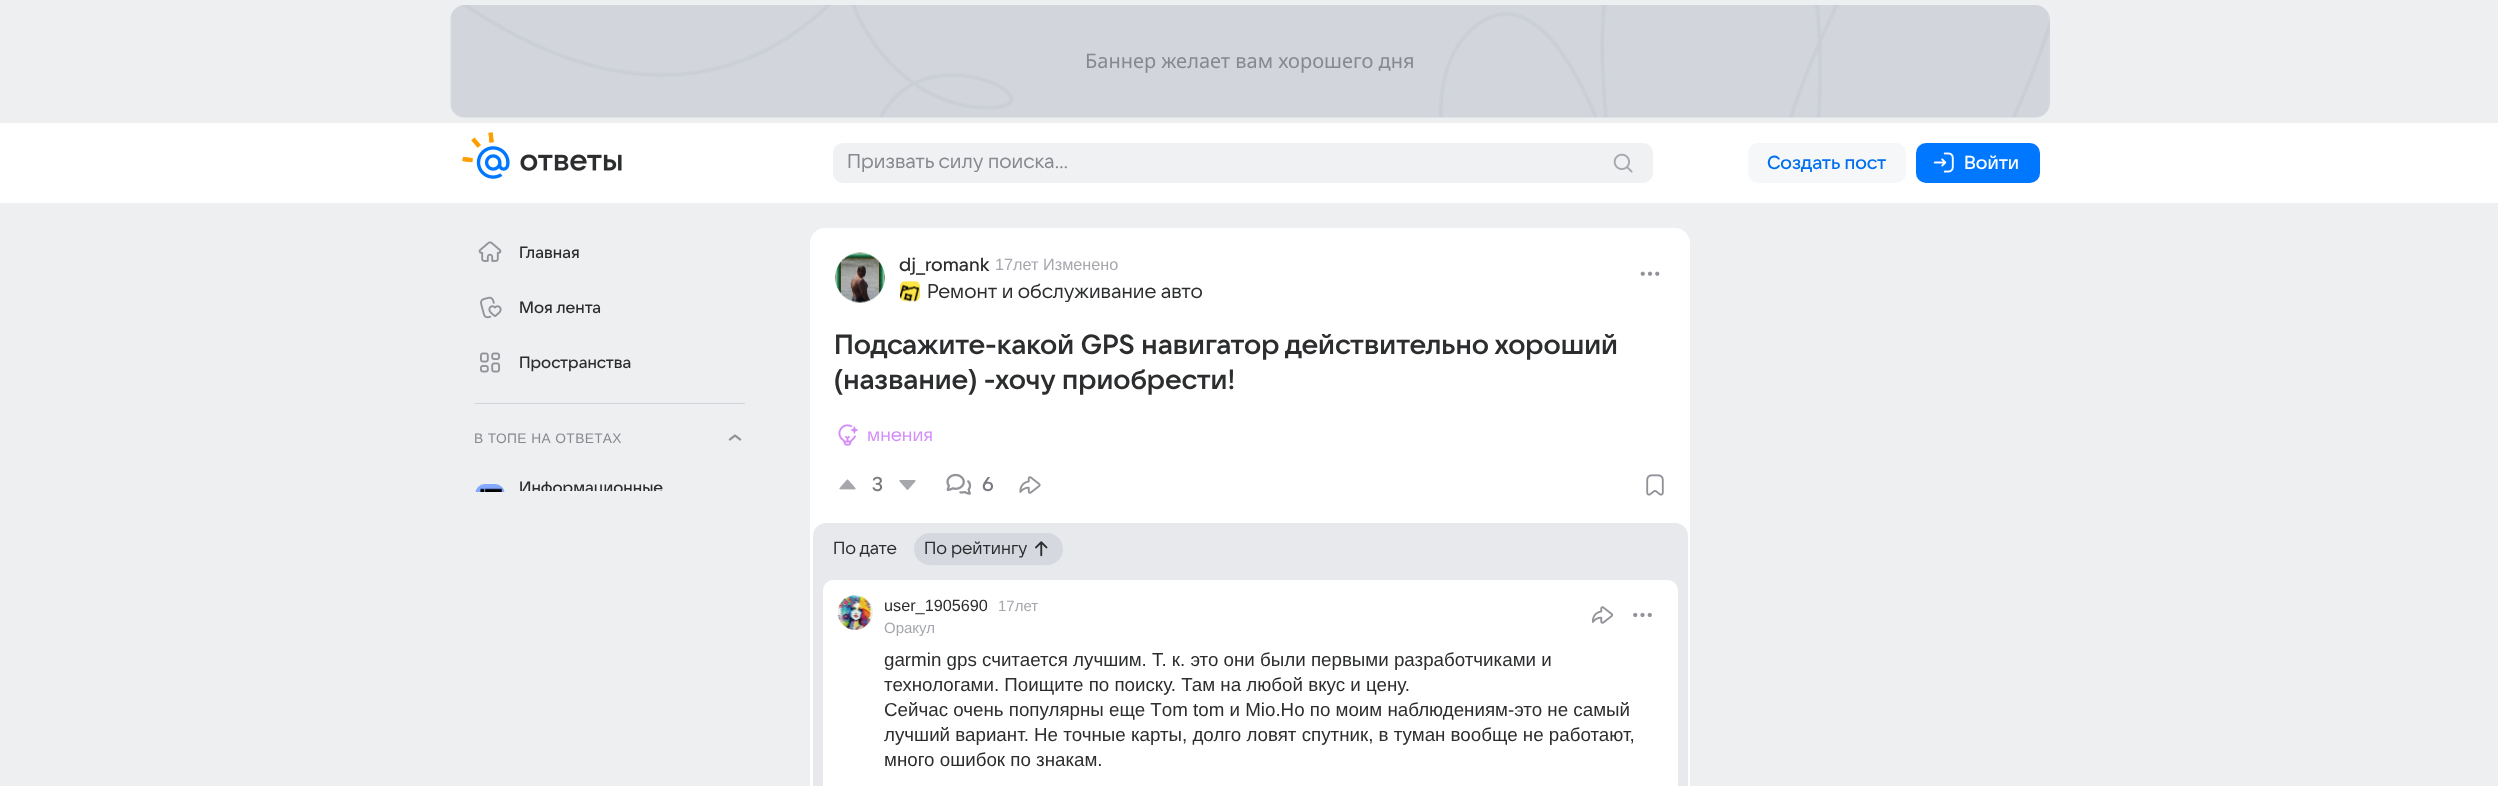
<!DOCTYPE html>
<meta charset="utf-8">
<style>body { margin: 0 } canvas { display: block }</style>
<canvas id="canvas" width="2498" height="786"></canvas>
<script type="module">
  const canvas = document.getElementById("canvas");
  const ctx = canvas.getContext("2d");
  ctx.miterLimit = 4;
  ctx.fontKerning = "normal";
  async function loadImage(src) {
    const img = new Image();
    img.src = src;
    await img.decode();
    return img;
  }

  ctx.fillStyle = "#eeeff1";
  ctx.fillRect(0, 0, 2498, 786);
  ctx.fillStyle = "#e0e2e6";
  ctx.beginPath();
  ctx.roundRect(450, 5, 1600, 113, 15);
  ctx.fill();
  ctx.drawImage(await loadImage("img1.png"), 451, 5, 1599, 112);
  ctx.font = "20px Noto Sans";
  ctx.fillStyle = "#87898f";
  ctx.fillText("Баннер желает вам хорошего дня", 1085, 68);
  ctx.fillStyle = "#ffffff";
  ctx.fillRect(0, 123, 2498, 80);
  ctx.drawImage(await loadImage("img2.png"), 462, 132, 160, 47);
  ctx.fillStyle = "#f0f1f3";
  ctx.beginPath();
  ctx.roundRect(833, 143, 820, 40, 10);
  ctx.fill();
  ctx.font = "20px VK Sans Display";
  ctx.fillStyle = "#87898f";
  ctx.fillText("Призвать силу поиска...", 847, 168);
  ctx.drawImage(await loadImage("img3.png"), 1613, 153, 20, 20);
  ctx.fillStyle = "#f6f7f8";
  ctx.beginPath();
  ctx.roundRect(1748, 143, 158, 40, 10);
  ctx.fill();
  ctx.font = "500 18.75px VK Sans Display";
  ctx.fillStyle = "#0070f0";
  ctx.fillText("Создать пост", 1767, 169);
  ctx.fillStyle = "#0077ff";
  ctx.beginPath();
  ctx.roundRect(1916, 143, 124, 40, 10);
  ctx.fill();
  ctx.drawImage(await loadImage("img4.png"), 1933, 152, 21, 21);
  ctx.fillStyle = "#ffffff";
  ctx.fillText("Войти", 1964, 169);
  ctx.drawImage(await loadImage("img5.png"), 478, 241, 24, 21);
  ctx.font = "500 16.25px VK Sans Display";
  ctx.fillStyle = "#2c2d2e";
  ctx.fillText("Главная", 519, 258);
  ctx.drawImage(await loadImage("img6.png"), 480, 296, 22, 23);
  ctx.fillText("Моя лента", 519, 313);
  ctx.drawImage(await loadImage("img7.png"), 480, 352, 20, 21);
  ctx.fillText("Пространства", 519, 368);
  ctx.fillStyle = "#d1d4db";
  ctx.fillRect(475, 403, 270, 1);
  ctx.letterSpacing = "0.4px";
  ctx.font = "13.75px Liberation Sans";
  ctx.fillStyle = "#87898f";
  ctx.fillText("В ТОПЕ НА ОТВЕТАХ", 474, 443);
  ctx.drawImage(await loadImage("img8.png"), 728, 434, 14, 7);
  ctx.drawImage(await loadImage("img9.png"), 475, 484, 30, 8);
  ctx.save();
  ctx.beginPath();
  ctx.rect(460, 466, 300, 25);
  ctx.clip();
  ctx.letterSpacing = "0px";
  ctx.font = "500 16.25px VK Sans Display";
  ctx.fillStyle = "#2c2d2e";
  ctx.fillText("Информационные", 519, 493);
  ctx.restore();
  ctx.fillStyle = "#ffffff";
  ctx.beginPath();
  ctx.roundRect(810, 228, 880, 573, 15);
  ctx.fill();
  ctx.fillStyle = "#f0f1f3";
  ctx.beginPath();
  ctx.arc(860, 278, 25, 0, Math.PI * 2);
  ctx.fill();
  ctx.drawImage(await loadImage("img10.png"), 835, 252, 50, 51);
  ctx.letterSpacing = "0px";
  ctx.font = "500 18.75px VK Sans Display";
  ctx.fillStyle = "#2c2d2e";
  ctx.fillText("dj_romank", 899, 271);
  ctx.font = "16.25px Liberation Sans";
  ctx.fillStyle = "#a5a7ad";
  ctx.fillText("17лет", 995, 270);
  ctx.fillText("Изменено", 1043, 270);
  ctx.fillStyle = "#f0f1f3";
  ctx.beginPath();
  ctx.roundRect(900, 281, 20, 20, 5);
  ctx.fill();
  ctx.drawImage(await loadImage("img11.png"), 900, 281, 20, 21);
  ctx.font = "20px VK Sans Display";
  ctx.fillStyle = "#2c2d2e";
  ctx.fillText("Ремонт и обслуживание авто", 927, 298);
  ctx.drawImage(await loadImage("img12.png"), 1640, 271, 20, 5);
  ctx.font = "600 27.5px VK Sans Display";
  ctx.fillText("Подсажите-какой GPS навигатор действительно хороший", 834, 354);
  ctx.fillText("(название) -хочу приобрести!", 834, 389);
  ctx.drawImage(await loadImage("img13.png"), 838, 424, 20, 22);
  ctx.font = "18.75px VK Sans Display";
  ctx.fillStyle = "#d48ef7";
  ctx.fillText("мнения", 867, 441);
  ctx.drawImage(await loadImage("img14.png"), 839, 479, 17, 11);
  ctx.font = "500 20px VK Sans Display";
  ctx.fillStyle = "#797a80";
  ctx.fillText("3", 872, 491);
  ctx.drawImage(await loadImage("img15.png"), 899, 480, 17, 10);
  ctx.drawImage(await loadImage("img16.png"), 946, 473, 26, 22);
  ctx.fillText("6", 982, 491);
  ctx.drawImage(await loadImage("img17.png"), 1019, 476, 22, 18);
  ctx.drawImage(await loadImage("img18.png"), 1646, 474, 18, 22);
  ctx.fillStyle = "#e7e9ec";
  ctx.beginPath();
  ctx.roundRect(813, 523, 875, 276, 13);
  ctx.fill();
  ctx.font = "17.5px VK Sans Display";
  ctx.fillStyle = "#2c2d2e";
  ctx.fillText("По дате", 833, 554);
  ctx.fillStyle = "#d5d8de";
  ctx.beginPath();
  ctx.roundRect(914, 533, 149, 32, 16);
  ctx.fill();
  ctx.fillStyle = "#2c2d2e";
  ctx.fillText("По рейтингу", 924, 554);
  ctx.drawImage(await loadImage("img19.png"), 1035, 541, 13, 16);
  ctx.fillStyle = "#ffffff";
  ctx.beginPath();
  ctx.roundRect(823, 580, 855, 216, 10);
  ctx.fill();
  ctx.fillStyle = "#f0f1f3";
  ctx.beginPath();
  ctx.arc(855.5, 612.5, 17.5, 0, Math.PI * 2);
  ctx.fill();
  ctx.drawImage(await loadImage("img20.png"), 837, 595, 36, 35);
  ctx.font = "16.25px Liberation Sans";
  ctx.fillStyle = "#2c2d2e";
  ctx.fillText("user_1905690", 884, 611);
  ctx.font = "15px Liberation Sans";
  ctx.fillStyle = "#a5a7ad";
  ctx.fillText("Оракул", 884, 633);
  ctx.fillText("17лет", 998, 611);
  ctx.drawImage(await loadImage("img21.png"), 1591, 606, 22, 18);
  ctx.drawImage(await loadImage("img22.png"), 1633, 612, 19, 6);
  ctx.font = "18.75px Liberation Sans";
  ctx.fillStyle = "#2c2d2e";
  ctx.fillText("garmin gps считается лучшим. Т. к. это они были первыми разработчиками и", 884, 666);
  ctx.fillText("технологами. Поищите по поиску. Там на любой вкус и цену.", 884, 691);
  ctx.fillText("Сейчас очень популярны еще Тom tom и Mio.Но по моим наблюдениям-это не самый", 884, 716);
  ctx.fillText("лучший вариант. Не точные карты, долго ловят спутник, в туман вообще не работают,", 884, 741);
  ctx.fillText("много ошибок по знакам.", 884, 766);
</script>
